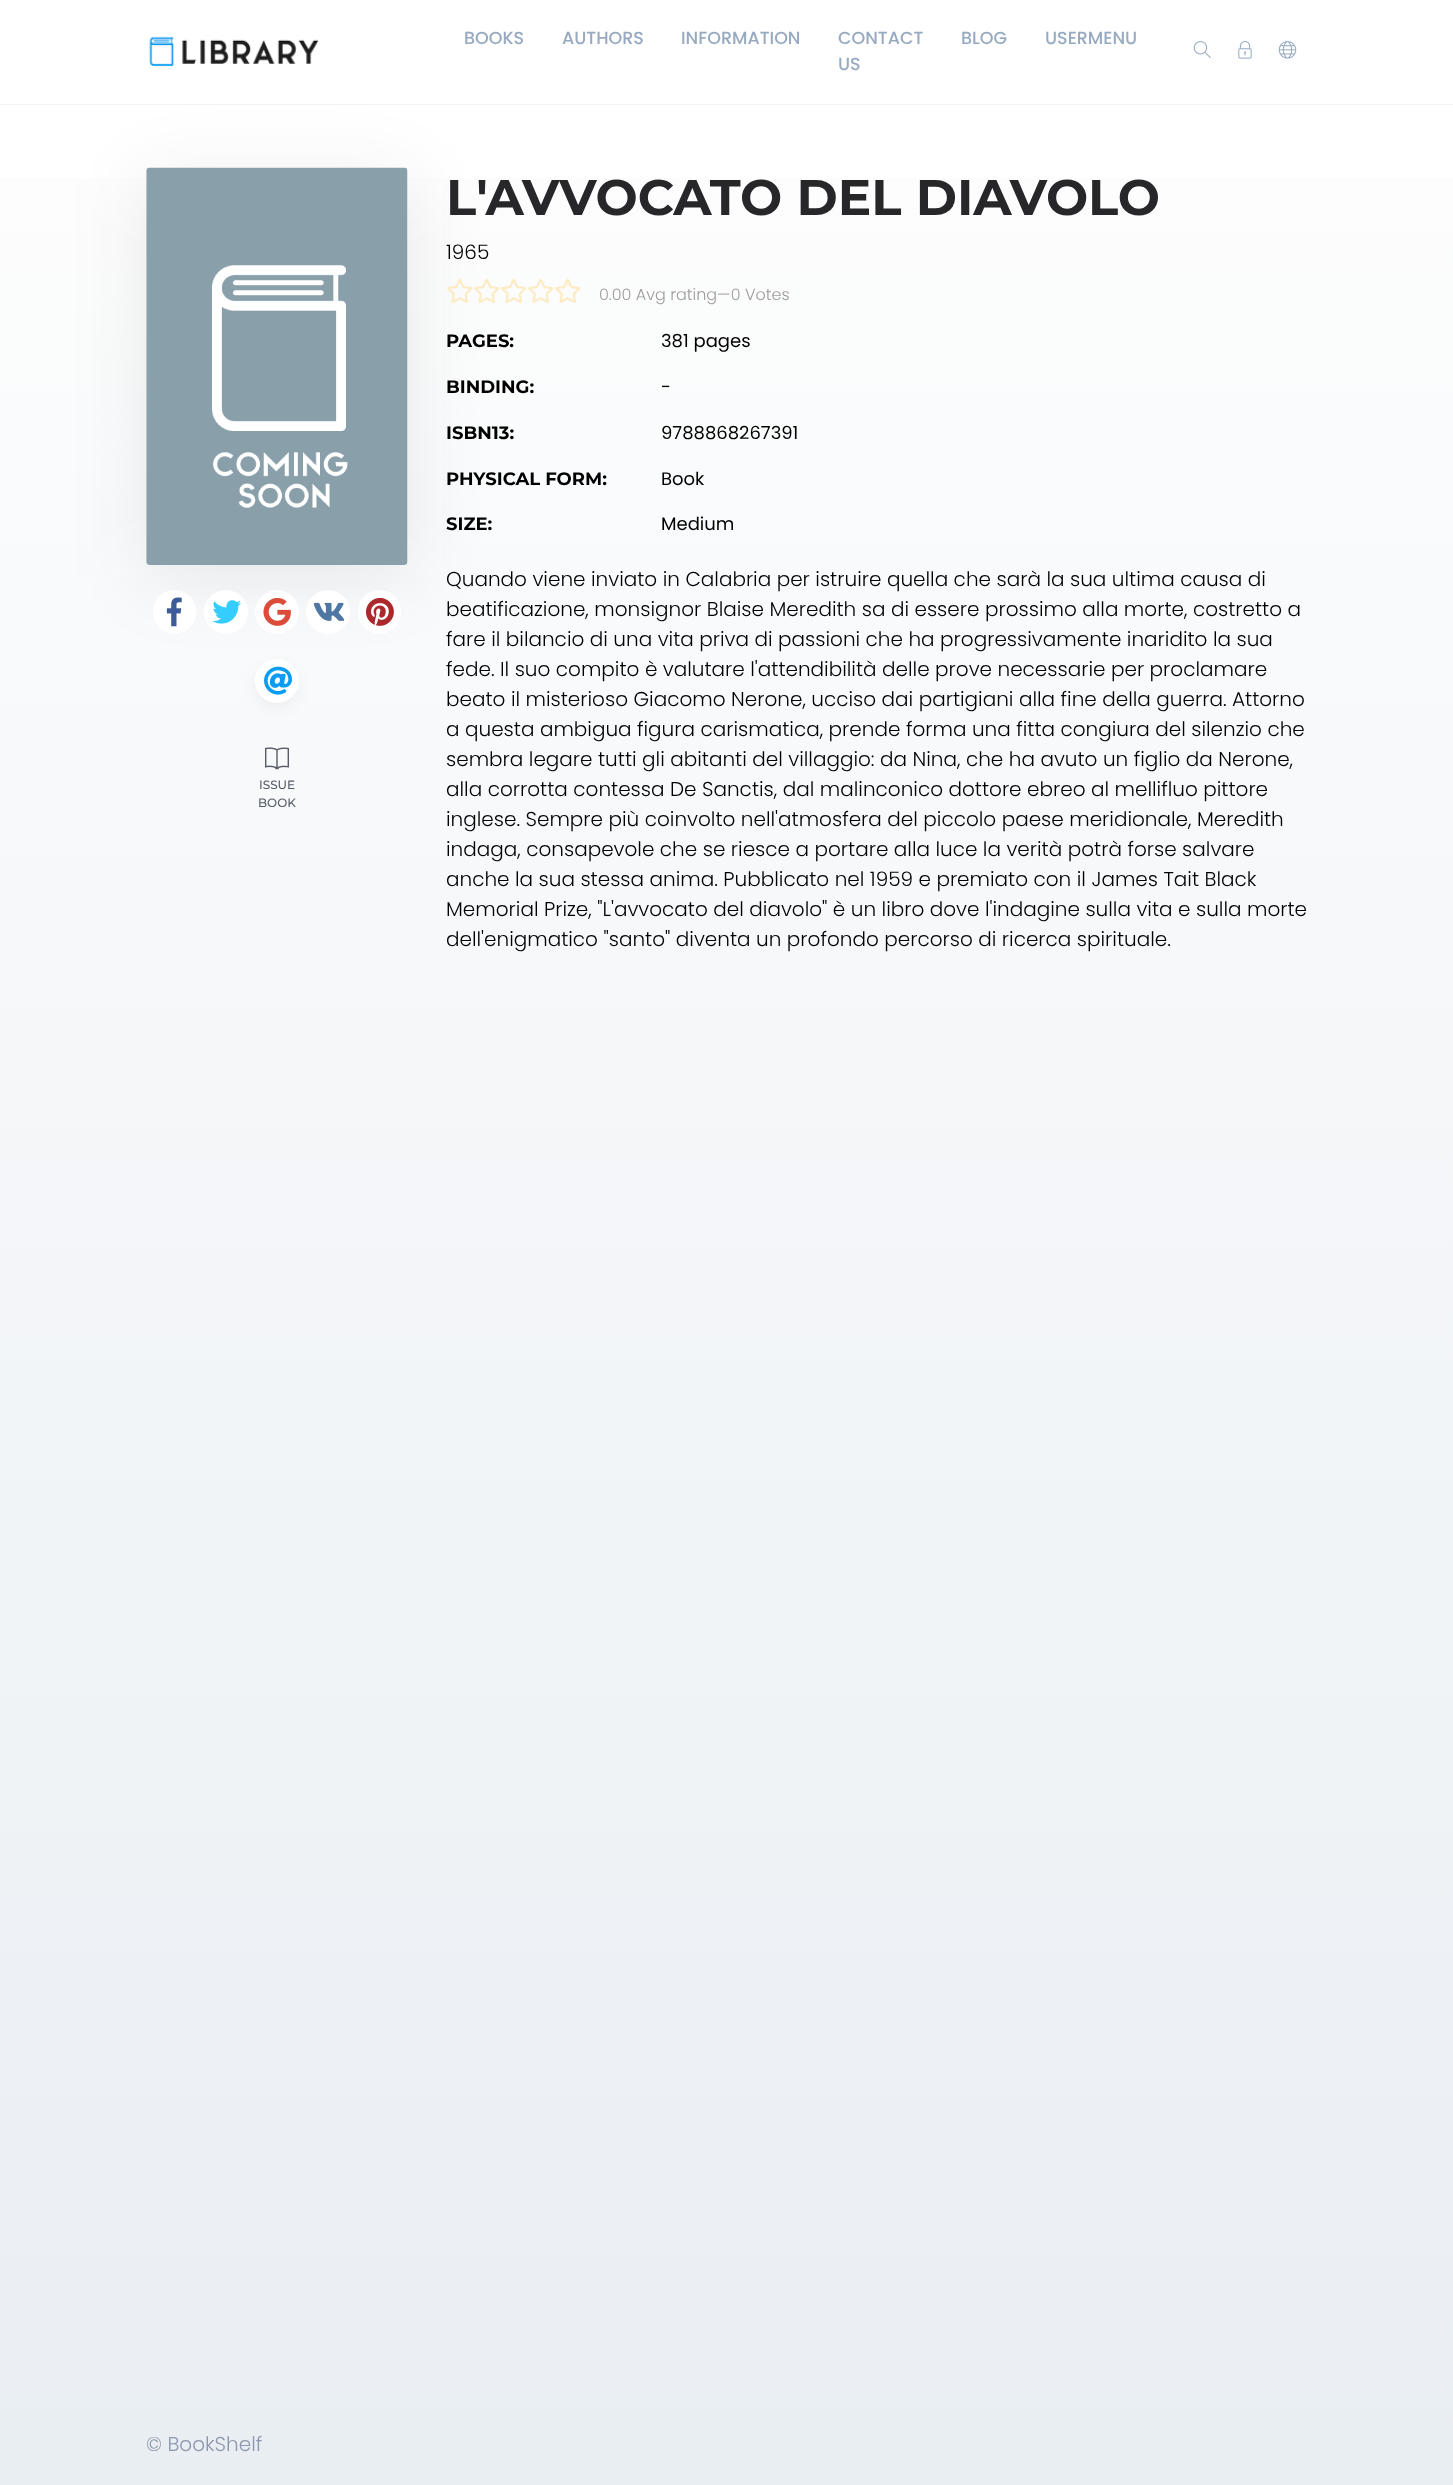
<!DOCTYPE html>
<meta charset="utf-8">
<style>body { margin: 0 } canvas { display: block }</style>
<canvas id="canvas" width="1453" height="2485"></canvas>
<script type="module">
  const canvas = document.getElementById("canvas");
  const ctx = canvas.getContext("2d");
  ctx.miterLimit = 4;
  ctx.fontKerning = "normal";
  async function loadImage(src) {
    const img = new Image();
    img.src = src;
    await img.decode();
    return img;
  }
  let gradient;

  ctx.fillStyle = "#ffffff";
  ctx.fillRect(0, 0, 1453, 2485);
  gradient = ctx.createLinearGradient(727, 0, 727, 2485);
  gradient.addColorStop(0, "#fefefe");
  gradient.addColorStop(1, "#e9eef3");
  ctx.fillStyle = gradient;
  ctx.fillRect(0, 178, 1453, 2307);
  ctx.fillStyle = "rgba(29, 29, 31, 0.09)";
  ctx.filter = "blur(37.5px)";
  ctx.beginPath();
  ctx.roundRect(146, 180, 262, 398, 4);
  ctx.fill();
  ctx.filter = "none";
  ctx.fillStyle = "#f3f3f3";
  ctx.fillRect(0, 104, 1453, 1);
  ctx.drawImage(await loadImage("img1.png"), 149, 36, 170, 31);
  ctx.font = "500 17.5px Poppins";
  ctx.fillStyle = "#97aac1";
  ctx.fillText("BOOKS", 464, 44);
  ctx.fillText("AUTHORS", 562, 44);
  ctx.fillText("INFORMATION", 681, 44);
  ctx.fillText("CONTACT", 838, 44);
  ctx.fillText("US", 838, 70);
  ctx.fillText("BLOG", 961, 44);
  ctx.fillText("USERMENU", 1045, 44);
  ctx.drawImage(await loadImage("img2.png"), 1193, 41, 18, 17);
  ctx.drawImage(await loadImage("img3.png"), 1238, 41, 14, 18);
  ctx.drawImage(await loadImage("img4.png"), 1278, 41, 19, 18);
  ctx.drawImage(await loadImage("img5.png"), 146, 167, 262, 398);
  ctx.fillStyle = "rgba(255, 255, 255, 0.99)";
  ctx.beginPath();
  ctx.roundRect(153, 590, 43, 44, 21.5);
  ctx.fill();
  ctx.drawImage(await loadImage("img6.png"), 166, 597, 16, 30);
  ctx.beginPath();
  ctx.arc(226, 612, 22, 0, Math.PI * 2);
  ctx.fill();
  ctx.drawImage(await loadImage("img7.png"), 212, 600, 29, 24);
  ctx.beginPath();
  ctx.arc(277, 612, 22, 0, Math.PI * 2);
  ctx.fill();
  ctx.drawImage(await loadImage("img8.png"), 263, 597, 28, 29);
  ctx.beginPath();
  ctx.arc(328, 612, 22, 0, Math.PI * 2);
  ctx.fill();
  ctx.drawImage(await loadImage("img9.png"), 313, 602, 32, 19);
  ctx.beginPath();
  ctx.roundRect(358, 590, 43, 44, 21.5);
  ctx.fill();
  ctx.drawImage(await loadImage("img10.png"), 366, 597, 28, 29);
  ctx.fillStyle = "rgba(2, 2, 3, 0.1)";
  ctx.filter = "blur(9.5px)";
  ctx.beginPath();
  ctx.roundRect(261, 671, 32, 32, 16);
  ctx.fill();
  ctx.filter = "none";
  ctx.fillStyle = "#ffffff";
  ctx.beginPath();
  ctx.arc(277, 681, 22, 0, Math.PI * 2);
  ctx.fill();
  ctx.drawImage(await loadImage("img11.png"), 264, 666, 28, 29);
  ctx.drawImage(await loadImage("img12.png"), 265, 747, 24, 23);
  ctx.font = "500 12px Montserrat";
  ctx.fillStyle = "#575d66";
  ctx.fillText("ISSUE", 259, 789);
  ctx.fillText("BOOK", 258, 807);
  ctx.font = "bold 50px Montserrat";
  ctx.fillStyle = "#272629";
  ctx.fillText("L'AVVOCATO DEL DIAVOLO", 446, 215);
  ctx.font = "300 20px Poppins";
  ctx.fillStyle = "#000000";
  ctx.fillText("1965", 446, 259);
  ctx.drawImage(await loadImage("img13.png"), 447, 279, 134, 24);
  ctx.font = "300 16px Poppins";
  ctx.fillStyle = "#9c9c9c";
  ctx.fillText("0.00 Avg rating—0 Votes", 599, 300);
  ctx.font = "bold 18px Montserrat";
  ctx.fillStyle = "#000000";
  ctx.fillText("PAGES:", 446, 347);
  ctx.font = "18px Poppins";
  ctx.fillText("381 pages", 661, 347);
  ctx.font = "bold 18px Montserrat";
  ctx.fillText("BINDING:", 446, 393);
  ctx.font = "18px Poppins";
  ctx.fillText("-", 661, 393);
  ctx.font = "bold 18px Montserrat";
  ctx.fillText("ISBN13:", 446, 439);
  ctx.font = "18px Poppins";
  ctx.fillText("9788868267391", 661, 439);
  ctx.font = "bold 18px Montserrat";
  ctx.fillText("PHYSICAL FORM:", 446, 485);
  ctx.font = "18px Poppins";
  ctx.fillText("Book", 661, 485);
  ctx.font = "bold 18px Montserrat";
  ctx.fillText("SIZE:", 446, 530);
  ctx.font = "18px Poppins";
  ctx.fillText("Medium", 661, 530);
  ctx.font = "300 20px Poppins";
  ctx.fillText("Quando viene inviato in Calabria per istruire quella che sarà la sua ultima causa di", 446, 586);
  ctx.fillText("beatificazione, monsignor Blaise Meredith sa di essere prossimo alla morte, costretto a", 446, 616);
  ctx.fillText("fare il bilancio di una vita priva di passioni che ha progressivamente inaridito la sua", 446, 646);
  ctx.fillText("fede. Il suo compito è valutare l'attendibilità delle prove necessarie per proclamare", 446, 676);
  ctx.fillText("beato il misterioso Giacomo Nerone, ucciso dai partigiani alla fine della guerra. Attorno", 446, 706);
  ctx.fillText("a questa ambigua figura carismatica, prende forma una fitta congiura del silenzio che", 446, 736);
  ctx.fillText("sembra legare tutti gli abitanti del villaggio: da Nina, che ha avuto un figlio da Nerone,", 446, 766);
  ctx.fillText("alla corrotta contessa De Sanctis, dal malinconico dottore ebreo al mellifluo pittore", 446, 796);
  ctx.fillText("inglese. Sempre più coinvolto nell'atmosfera del piccolo paese meridionale, Meredith", 446, 826);
  ctx.fillText("indaga, consapevole che se riesce a portare alla luce la verità potrà forse salvare", 446, 856);
  ctx.fillText("anche la sua stessa anima. Pubblicato nel 1959 e premiato con il James Tait Black", 446, 886);
  ctx.fillText("Memorial Prize, \"L'avvocato del diavolo\" è un libro dove l'indagine sulla vita e sulla morte", 446, 916);
  ctx.fillText("dell'enigmatico \"santo\" diventa un profondo percorso di ricerca spirituale.", 446, 946);
  ctx.fillStyle = "#8d97ad";
  ctx.fillText("© BookShelf", 146, 2451);
</script>
